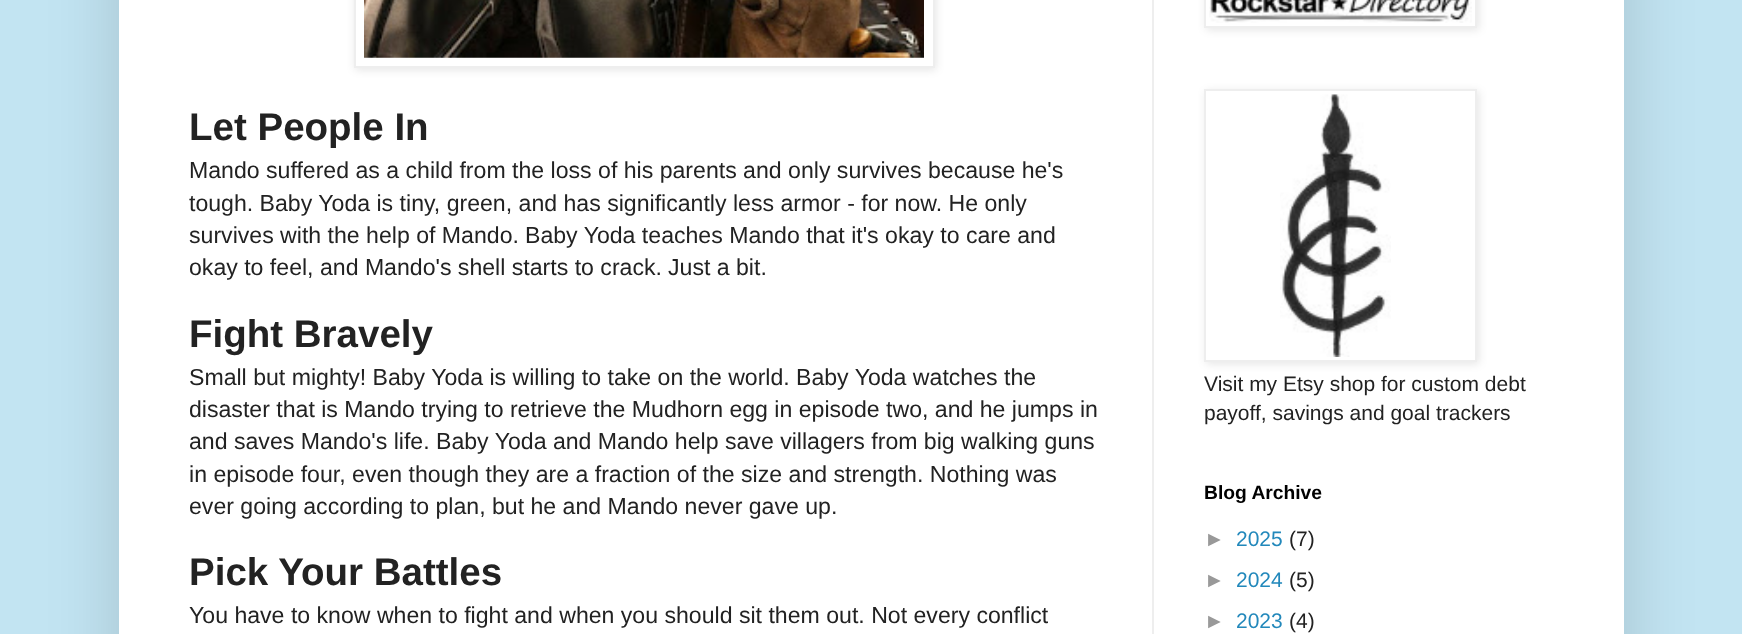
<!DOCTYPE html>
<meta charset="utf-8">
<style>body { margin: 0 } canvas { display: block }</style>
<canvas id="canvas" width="1742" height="634"></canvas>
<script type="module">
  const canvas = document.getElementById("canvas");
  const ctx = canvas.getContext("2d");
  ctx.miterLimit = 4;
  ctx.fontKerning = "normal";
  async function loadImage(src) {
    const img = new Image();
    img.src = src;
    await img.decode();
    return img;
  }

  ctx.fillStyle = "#c2e4f2";
  ctx.fillRect(0, 0, 1742, 634);
  ctx.fillStyle = "rgba(0, 0, 0, 0.15)";
  ctx.filter = "blur(35px)";
  ctx.beginPath();
  ctx.rect(119, -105, 1505, 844);
  ctx.fill();
  ctx.filter = "none";
  ctx.fillStyle = "#ffffff";
  ctx.fillRect(119, 0, 1505, 634);
  ctx.fillStyle = "#eeeeee";
  ctx.fillRect(1152, 0, 2, 634);
  ctx.fillStyle = "rgba(0, 0, 0, 0.1)";
  ctx.filter = "blur(4.5px)";
  ctx.beginPath();
  ctx.rect(355, -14, 581, 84);
  ctx.fill();
  ctx.filter = "none";
  ctx.fillStyle = "#ffffff";
  ctx.beginPath();
  ctx.rect(355, -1, 579, 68);
  ctx.fill();
  ctx.strokeStyle = "#eeeeee";
  ctx.lineWidth = 2;
  ctx.stroke();
  ctx.drawImage(await loadImage("img1.png"), 364, 0, 560, 58);
  ctx.font = "bold 38.5px Liberation Sans";
  ctx.fillStyle = "#222222";
  ctx.fillText("Let People In", 189, 140);
  ctx.font = "23.1px Liberation Sans";
  ctx.fillText("Mando suffered as a child from the loss of his parents and only survives because he's", 189, 178);
  ctx.fillText("tough. Baby Yoda is tiny, green, and has significantly less armor - for now. He only", 189, 211);
  ctx.fillText("survives with the help of Mando.", 189, 243);
  ctx.fillText("Baby Yoda teaches Mando that it's okay to care and", 525, 243);
  ctx.fillText("okay to feel, and Mando's shell starts to crack.", 189, 275);
  ctx.fillText("Just a bit.", 668, 275);
  ctx.font = "bold 38.5px Liberation Sans";
  ctx.fillText("Fight Bravely", 189, 347);
  ctx.font = "23.1px Liberation Sans";
  ctx.fillText("Small but mighty! Baby Yoda is willing to take on the world.", 189, 385);
  ctx.fillText("Baby Yoda watches the", 796, 385);
  ctx.fillText("disaster that is Mando trying to retrieve the Mudhorn egg in episode two, and he jumps in", 189, 417);
  ctx.fillText("and saves Mando's life. Baby Yoda and Mando help save villagers from big walking guns", 189, 449);
  ctx.fillText("in episode four, even though they are a fraction of the size and strength. Nothing was", 189, 482);
  ctx.fillText("ever going according to plan, but he and Mando never gave up.", 189, 514);
  ctx.font = "bold 38.5px Liberation Sans";
  ctx.fillText("Pick Your Battles", 189, 585);
  ctx.font = "23.1px Liberation Sans";
  ctx.fillText("You have to know when to fight and when you should sit them out. Not every conflict", 189, 623);
  ctx.save();
  ctx.beginPath();
  ctx.moveTo(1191, 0);
  ctx.lineTo(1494, 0);
  ctx.lineTo(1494, 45);
  ctx.lineTo(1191, 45);
  ctx.closePath();
  ctx.moveTo(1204, -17);
  ctx.lineTo(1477, -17);
  ctx.lineTo(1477, 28);
  ctx.lineTo(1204, 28);
  ctx.closePath();
  ctx.clip("evenodd");
  ctx.fillStyle = "rgba(0, 0, 0, 0.1)";
  ctx.filter = "blur(4.5px)";
  ctx.beginPath();
  ctx.rect(1206, -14, 273, 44);
  ctx.fill();
  ctx.filter = "none";
  ctx.restore();
  ctx.strokeRect(1205, -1, 271, 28);
  ctx.drawImage(await loadImage("img2.png"), 1209, 0, 263, 23);
  ctx.fillStyle = "rgba(0, 0, 0, 0.1)";
  ctx.filter = "blur(4.5px)";
  ctx.beginPath();
  ctx.rect(1206, 91, 273, 273);
  ctx.fill();
  ctx.filter = "none";
  ctx.fillStyle = "#ffffff";
  ctx.beginPath();
  ctx.rect(1205, 90, 271, 271);
  ctx.fill();
  ctx.stroke();
  ctx.drawImage(await loadImage("img3.png"), 1280, 94, 111, 263);
  ctx.font = "21px Liberation Sans";
  ctx.fillStyle = "#222222";
  ctx.fillText("Visit my Etsy shop for custom debt", 1204, 391);
  ctx.fillText("payoff, savings and goal trackers", 1204, 420);
  ctx.font = "bold 19.25px Liberation Sans";
  ctx.fillStyle = "#000000";
  ctx.fillText("Blog Archive", 1204, 499);
  ctx.font = "21px Liberation Sans";
  ctx.fillStyle = "#999999";
  ctx.fillText("►", 1204, 546);
  ctx.fillStyle = "#2288bb";
  ctx.fillText("2025", 1236, 546);
  ctx.fillStyle = "#222222";
  ctx.fillText("(7)", 1289, 546);
  ctx.fillStyle = "#999999";
  ctx.fillText("►", 1204, 587);
  ctx.fillStyle = "#2288bb";
  ctx.fillText("2024", 1236, 587);
  ctx.fillStyle = "#222222";
  ctx.fillText("(5)", 1289, 587);
  ctx.fillStyle = "#999999";
  ctx.fillText("►", 1204, 628);
  ctx.fillStyle = "#2288bb";
  ctx.fillText("2023", 1236, 628);
  ctx.fillStyle = "#222222";
  ctx.fillText("(4)", 1289, 628);
</script>
